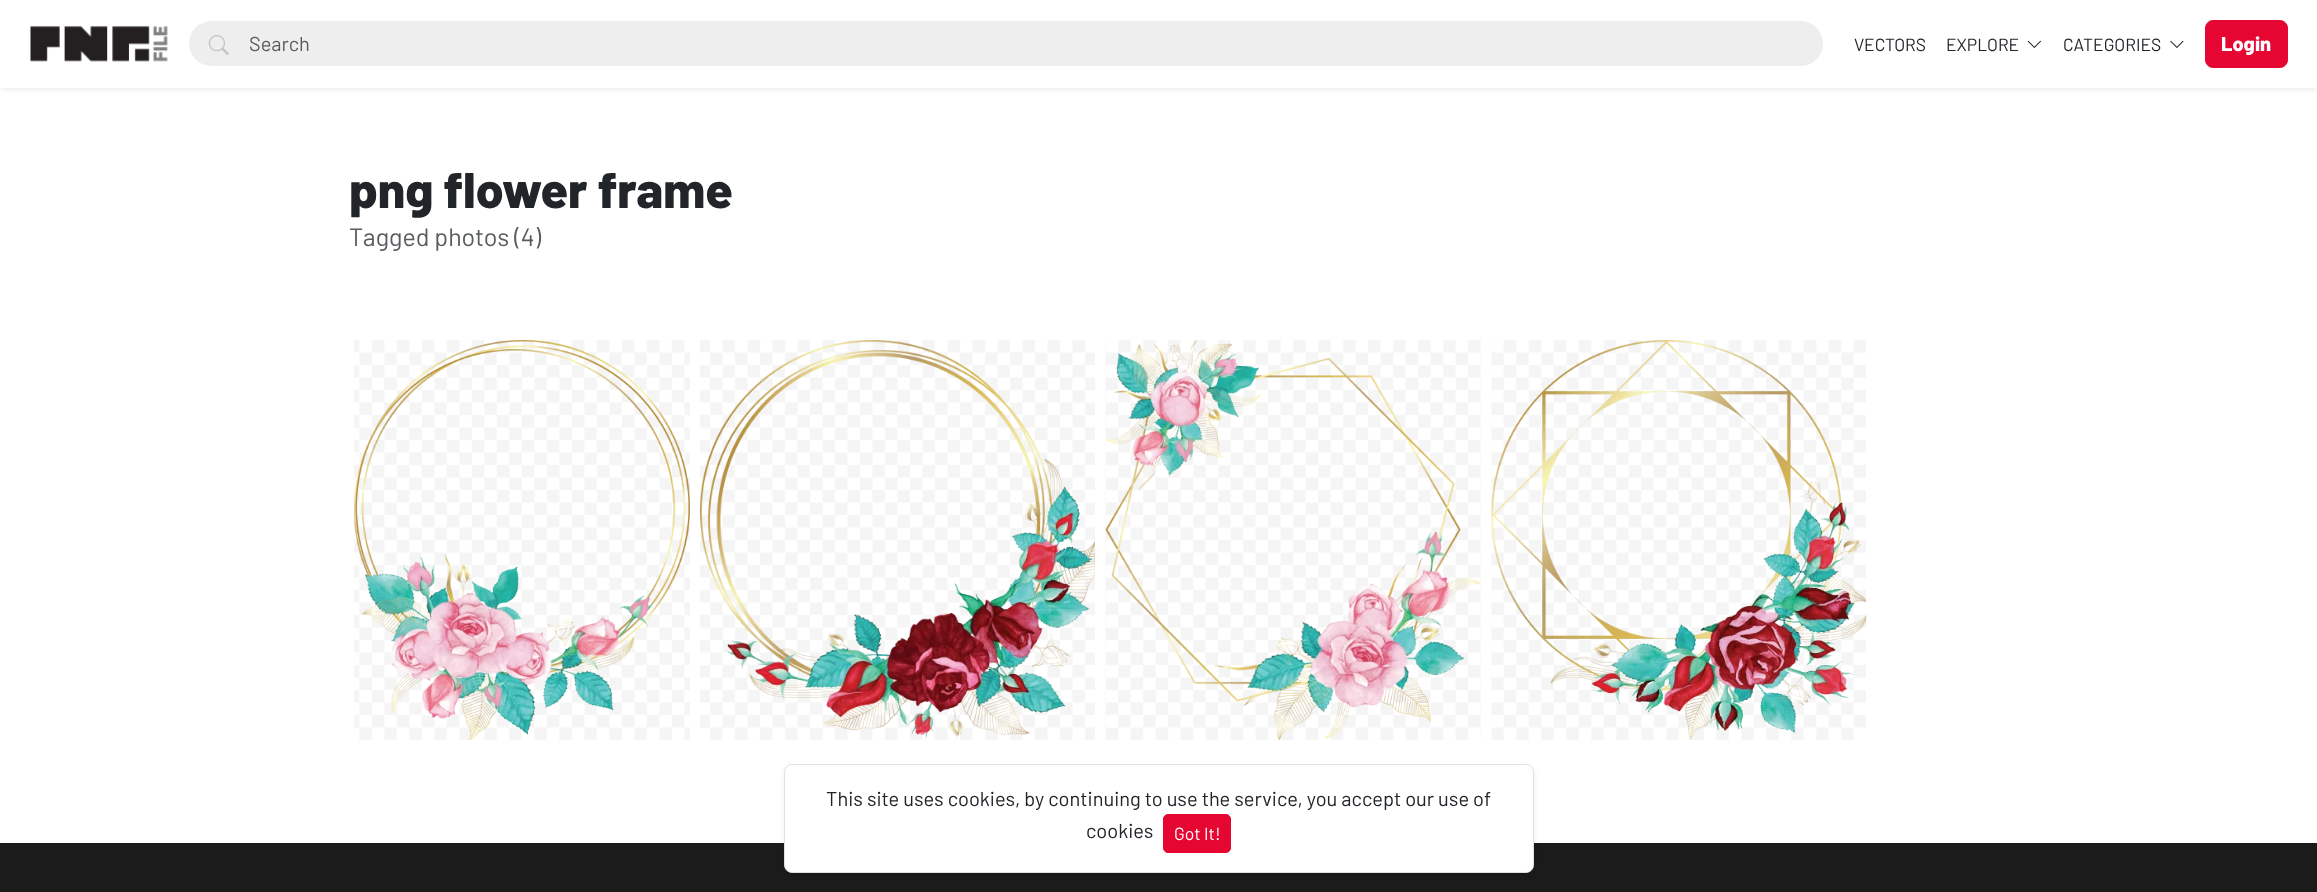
<!DOCTYPE html>
<meta charset="utf-8">
<style>body { margin: 0 } canvas { display: block }</style>
<canvas id="canvas" width="2317" height="892"></canvas>
<script type="module">
  const canvas = document.getElementById("canvas");
  const ctx = canvas.getContext("2d");
  ctx.miterLimit = 4;
  ctx.fontKerning = "normal";
  async function loadImage(src) {
    const img = new Image();
    img.src = src;
    await img.decode();
    return img;
  }

  ctx.fillStyle = "#ffffff";
  ctx.fillRect(0, 0, 2317, 892);
  ctx.fillStyle = "rgba(0, 0, 0, 0.07)";
  ctx.filter = "blur(2.5px)";
  ctx.beginPath();
  ctx.rect(0, 3, 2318, 87);
  ctx.fill();
  ctx.filter = "none";
  ctx.fillStyle = "#ffffff";
  ctx.fillRect(0, 0, 2317, 88);
  ctx.drawImage(await loadImage("img1.png"), 30, 26, 138, 36);
  ctx.fillStyle = "#eeeeee";
  ctx.beginPath();
  ctx.roundRect(189, 21, 1634, 45, 22.5);
  ctx.fill();
  ctx.drawImage(await loadImage("img2.png"), 208, 35, 21, 20);
  ctx.font = "20px Barlow";
  ctx.fillStyle = "#595c5f";
  ctx.fillText("Search", 249, 51);
  ctx.font = "17.5px Barlow";
  ctx.fillStyle = "#212529";
  ctx.fillText("VECTORS", 1854, 51);
  ctx.fillText("EXPLORE", 1946, 51);
  ctx.drawImage(await loadImage("img3.png"), 2027, 40, 14, 8);
  ctx.fillText("CATEGORIES", 2063, 51);
  ctx.drawImage(await loadImage("img4.png"), 2170, 40, 14, 8);
  ctx.fillStyle = "#e50632";
  ctx.beginPath();
  ctx.roundRect(2205.5, 20.5, 82, 47, 7.5);
  ctx.fill();
  ctx.strokeStyle = "#e50632";
  ctx.stroke();
  ctx.font = "800 20px Barlow";
  ctx.fillStyle = "#ffffff";
  ctx.fillText("Login", 2221, 51);
  ctx.font = "800 50px Barlow";
  ctx.fillStyle = "#212529";
  ctx.fillText("png flower frame", 349, 208);
  ctx.font = "25px Barlow";
  ctx.fillStyle = "#595c5f";
  ctx.fillText("Tagged photos (4)", 349, 246);
  ctx.drawImage(await loadImage("img5.png"), 354, 340, 336, 400);
  ctx.drawImage(await loadImage("img6.png"), 353, 340, 337, 400);
  ctx.drawImage(await loadImage("img7.png"), 700, 340, 395, 400);
  ctx.drawImage(await loadImage("img8.png"), 700, 340, 395, 400);
  ctx.drawImage(await loadImage("img9.png"), 1105, 340, 376, 400);
  ctx.drawImage(await loadImage("img10.png"), 1105, 340, 376, 400);
  ctx.drawImage(await loadImage("img11.png"), 1491, 340, 375, 400);
  ctx.drawImage(await loadImage("img12.png"), 1491, 340, 376, 400);
  ctx.fillStyle = "#1b1b1b";
  ctx.fillRect(0, 843, 2317, 49);
  ctx.fillStyle = "rgba(0, 0, 0, 0.07)";
  ctx.filter = "blur(2.5px)";
  ctx.beginPath();
  ctx.roundRect(784, 766, 750, 109, 8);
  ctx.fill();
  ctx.filter = "none";
  ctx.fillStyle = "#ffffff";
  ctx.beginPath();
  ctx.roundRect(784.5, 764.5, 749, 108, 7.5);
  ctx.fill();
  ctx.strokeStyle = "#dee2e6";
  ctx.stroke();
  ctx.font = "20px Barlow";
  ctx.fillStyle = "#212529";
  ctx.fillText("This site uses cookies, by continuing to use the service, you accept our use of", 826, 806);
  ctx.fillText("cookies", 1086, 838);
  ctx.fillStyle = "#e50632";
  ctx.beginPath();
  ctx.roundRect(1163.5, 814.5, 67, 38, 4.5);
  ctx.fill();
  ctx.strokeStyle = "#e50632";
  ctx.stroke();
  ctx.font = "17.5px Barlow";
  ctx.fillStyle = "#ffffff";
  ctx.fillText("Got It!", 1174, 840);
</script>
